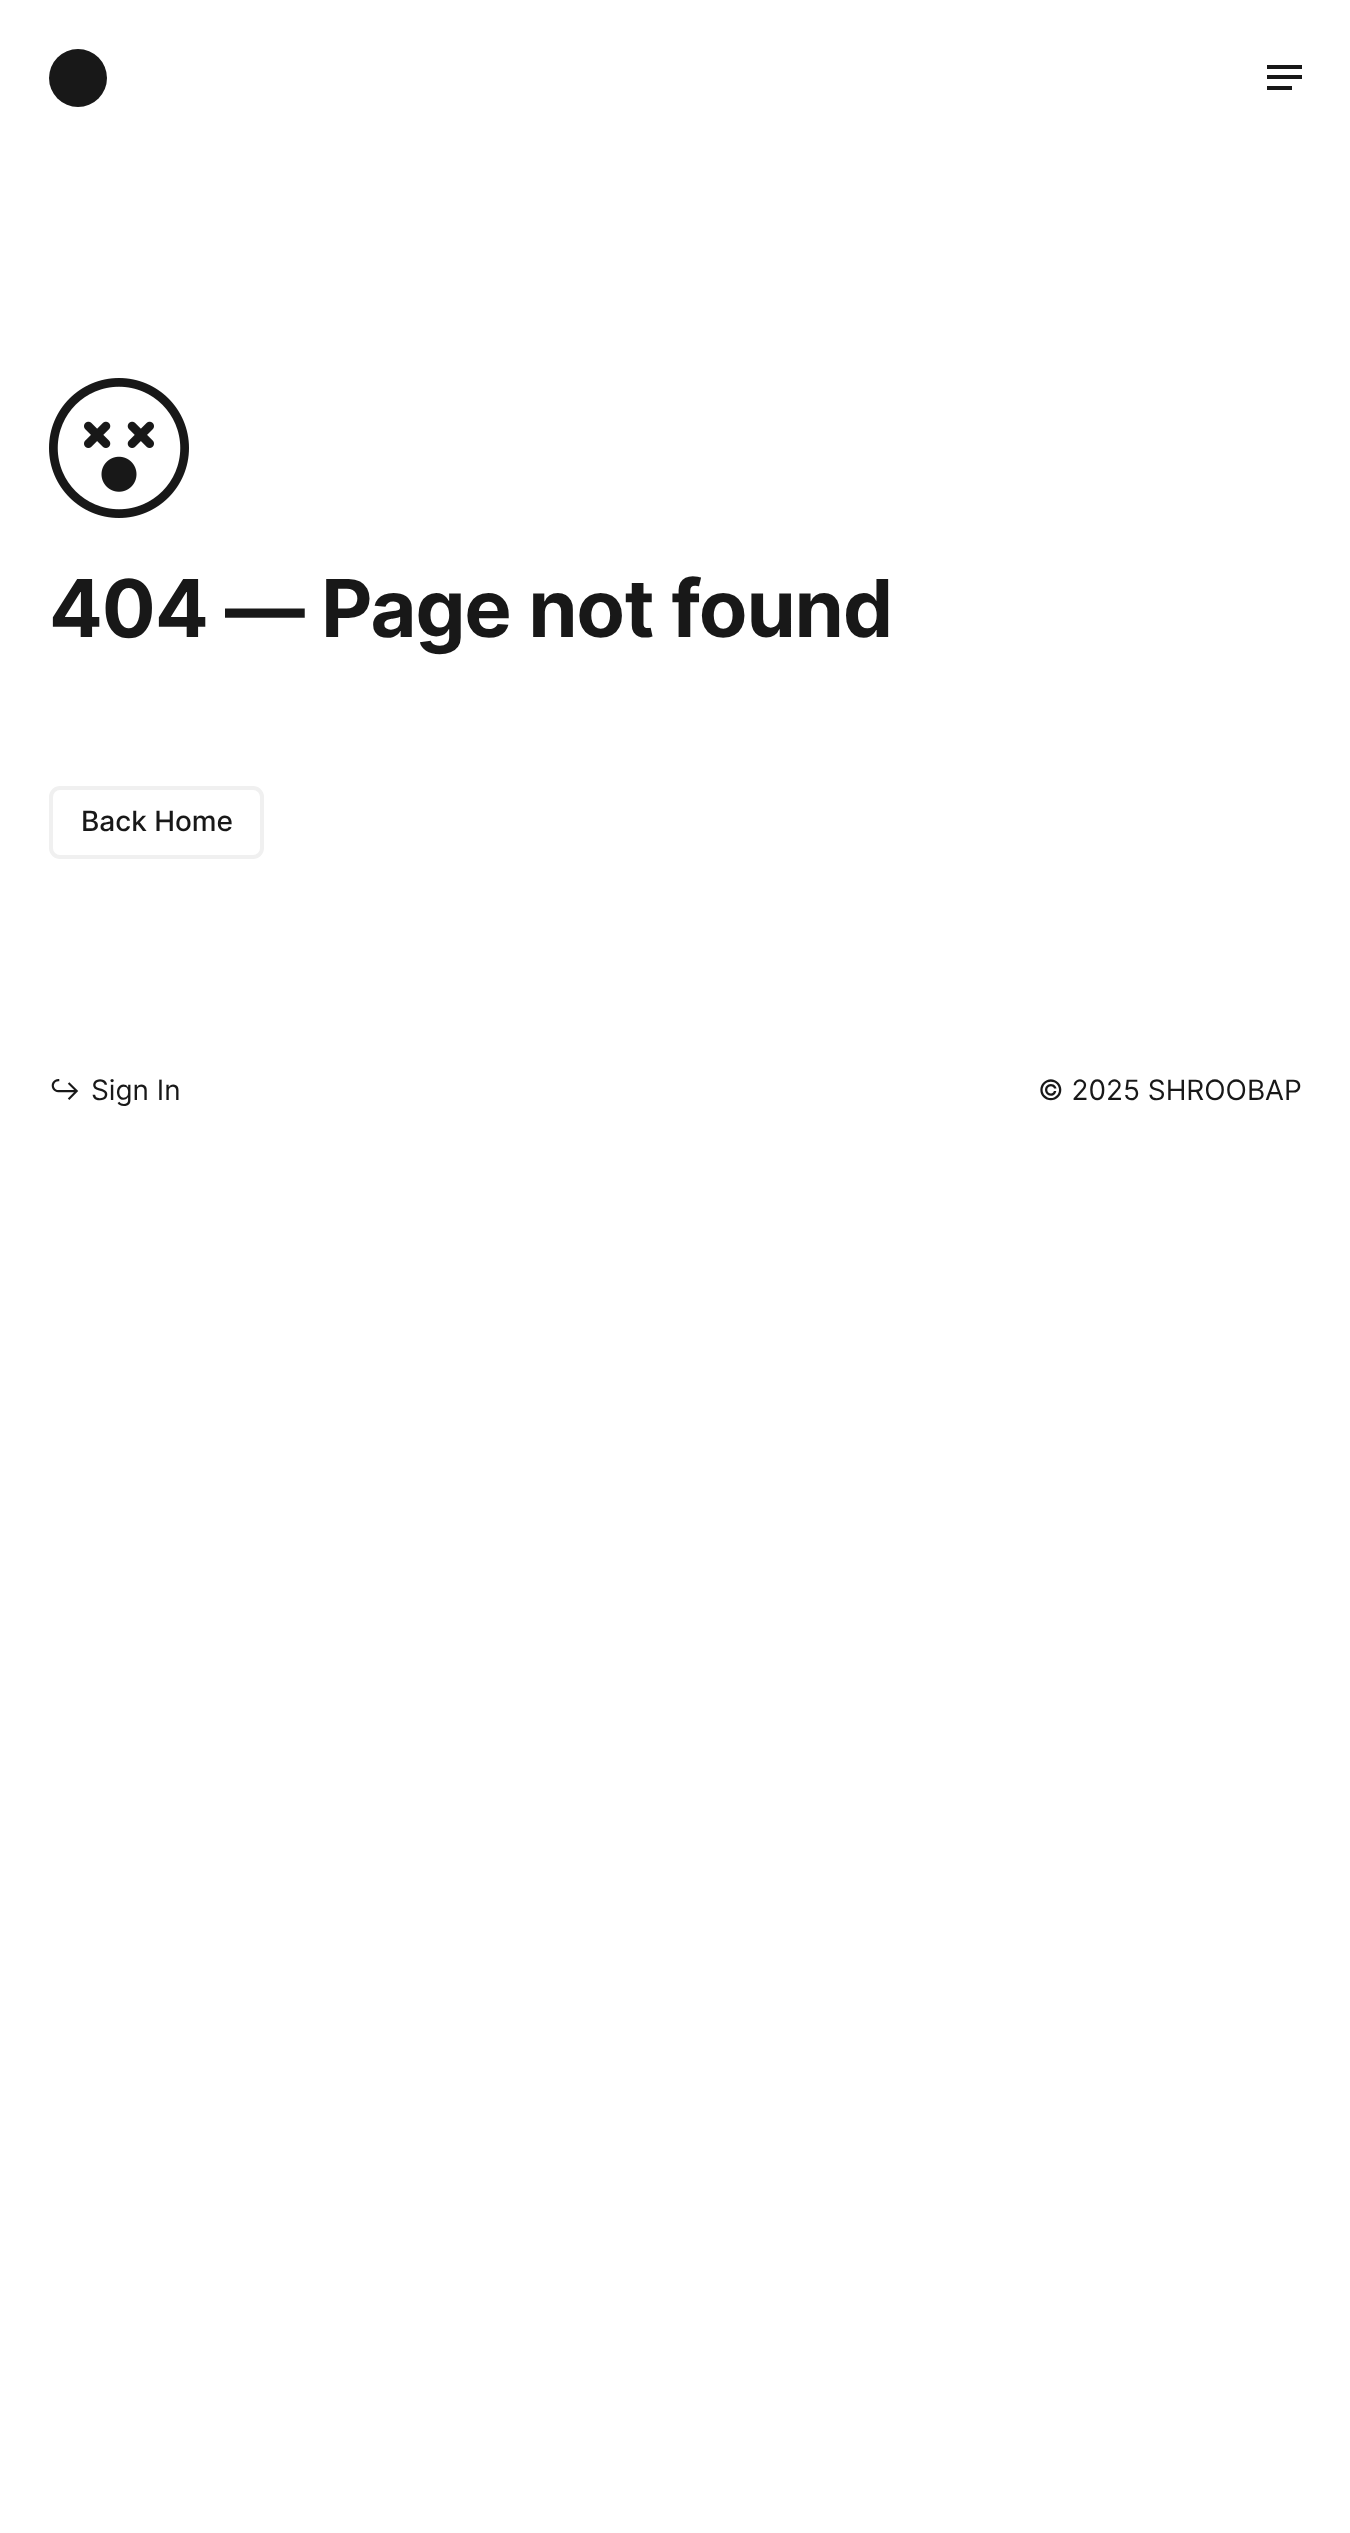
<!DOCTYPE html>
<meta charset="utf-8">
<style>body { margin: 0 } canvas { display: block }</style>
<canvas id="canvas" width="1350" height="2533"></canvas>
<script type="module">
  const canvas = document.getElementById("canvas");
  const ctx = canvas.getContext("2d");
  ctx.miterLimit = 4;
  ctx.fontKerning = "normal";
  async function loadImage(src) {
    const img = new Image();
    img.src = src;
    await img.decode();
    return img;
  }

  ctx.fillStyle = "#ffffff";
  ctx.fillRect(0, 0, 1350, 2533);
  ctx.fillStyle = "#181818";
  ctx.beginPath();
  ctx.arc(78, 78, 29, 0, Math.PI * 2);
  ctx.fill();
  ctx.fillRect(1267, 65, 35, 4);
  ctx.fillRect(1267, 75, 35, 4);
  ctx.fillRect(1267, 86, 25, 4);
  ctx.drawImage(await loadImage("img1.png"), 49, 378, 140, 140);
  ctx.letterSpacing = "-1.25px";
  ctx.font = "bold 79.75px Inter";
  ctx.fillText("404 — Page not found", 49, 637);
  ctx.beginPath();
  ctx.roundRect(51, 788, 211, 69, 9);
  ctx.strokeStyle = "#f0f0f0";
  ctx.lineWidth = 4;
  ctx.stroke();
  ctx.letterSpacing = "0px";
  ctx.font = "500 28px Inter";
  ctx.fillText("Back Home", 81, 831);
  ctx.font = "28px Inter";
  ctx.fillText("↪", 49, 1100);
  ctx.fillText("Sign In", 91, 1100);
  ctx.fillText("© 2025 SHROOBAP", 1038, 1100);
</script>
